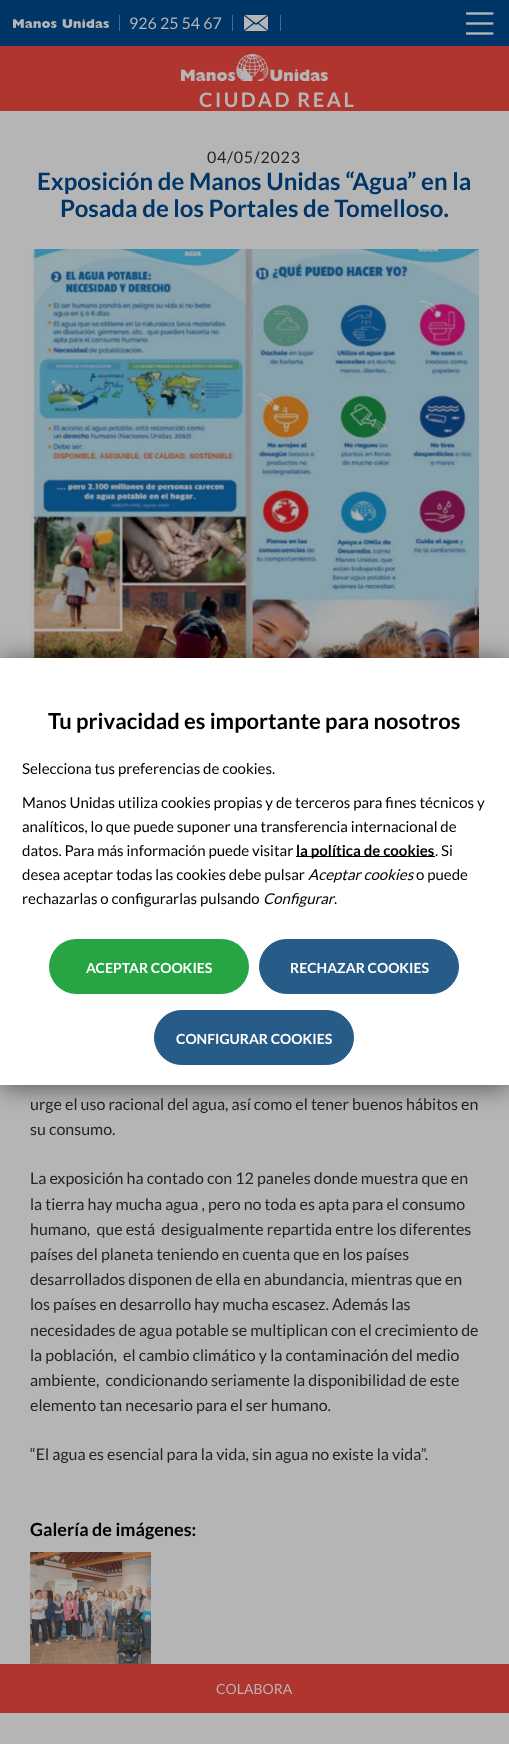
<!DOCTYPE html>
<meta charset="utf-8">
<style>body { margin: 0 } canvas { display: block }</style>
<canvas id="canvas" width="509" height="1744"></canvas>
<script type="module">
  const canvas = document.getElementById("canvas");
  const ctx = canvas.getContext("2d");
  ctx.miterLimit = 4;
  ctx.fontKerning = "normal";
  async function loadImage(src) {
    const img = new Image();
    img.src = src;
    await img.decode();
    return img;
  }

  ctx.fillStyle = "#b5b5b5";
  ctx.fillRect(0, 0, 509, 1744);
  ctx.fillStyle = "#003568";
  ctx.fillRect(0, 0, 509, 46);
  ctx.drawImage(await loadImage("img1.png"), 13, 19, 96, 9);
  ctx.fillStyle = "#4b6a88";
  ctx.fillRect(119, 15, 1, 16);
  ctx.font = "16px Lato";
  ctx.fillStyle = "#b5b5b5";
  ctx.fillText("926 25 54 67", 129, 29);
  ctx.fillStyle = "#4b6a88";
  ctx.fillRect(232, 15, 1, 16);
  ctx.drawImage(await loadImage("img2.png"), 244, 15, 24, 16);
  ctx.fillRect(280, 15, 1, 16);
  ctx.drawImage(await loadImage("img3.png"), 466, 12, 28, 23);
  ctx.fillStyle = "#b0352e";
  ctx.fillRect(0, 46, 509, 65);
  ctx.drawImage(await loadImage("img4.png"), 181, 54, 147, 27);
  ctx.letterSpacing = "2.5px";
  ctx.wordSpacing = "-1px";
  ctx.font = "bold 20px Lato";
  ctx.fillStyle = "#b5b5b5";
  ctx.fillText("CIUDAD REAL", 199, 107);
  ctx.drawImage(await loadImage("img5.png"), 30, 249, 449, 409);
  ctx.letterSpacing = "0px";
  ctx.wordSpacing = "0px";
  ctx.font = "16px Lato";
  ctx.fillStyle = "#242424";
  ctx.fillText("urge el uso racional del agua, así como el tener buenos hábitos en", 30, 1110);
  ctx.fillText("su consumo.", 30, 1135);
  ctx.fillText("La exposición ha contado con 12 paneles donde muestra que en", 30, 1184);
  ctx.fillText("la tierra hay mucha agua , pero no toda es apta para el consumo", 30, 1210);
  ctx.fillText("humano,  que está  desigualmente repartida entre los diferentes", 30, 1235);
  ctx.fillText("países del planeta teniendo en cuenta que en los países", 30, 1260);
  ctx.fillText("desarrollados disponen de ella en abundancia, mientras que en", 30, 1285);
  ctx.fillText("los países en desarrollo hay mucha escasez. Además las", 30, 1310);
  ctx.fillText("necesidades de agua potable se multiplican con el crecimiento de", 30, 1336);
  ctx.fillText("la población,  el cambio climático y la contaminación del medio", 30, 1361);
  ctx.fillText("ambiente,  condicionando seriamente la disponibilidad de este", 30, 1386);
  ctx.fillText("elemento tan necesario para el ser humano.", 30, 1411);
  ctx.fillText("“El agua es esencial para la vida, sin agua no existe la vida”.", 30, 1460);
  ctx.font = "bold 18px Lato";
  ctx.fillStyle = "#000000";
  ctx.fillText("Galería de imágenes:", 30, 1536);
  ctx.drawImage(await loadImage("img6.png"), 30, 1552, 121, 112);
  ctx.fillStyle = "#b0352e";
  ctx.fillRect(0, 1664, 509, 49);
  ctx.font = "14px Lato";
  ctx.fillStyle = "#b5b5b5";
  ctx.fillText("COLABORA", 216, 1694);
  ctx.letterSpacing = "0.75px";
  ctx.font = "16px Lato";
  ctx.fillStyle = "#242424";
  ctx.fillText("04/05/2023", 207, 163);
  ctx.letterSpacing = "0px";
  ctx.font = "bold 24px Lato";
  ctx.fillStyle = "#003568";
  ctx.fillText("Exposición de Manos Unidas “Agua” en la", 37, 190);
  ctx.fillText("Posada de los Portales de Tomelloso.", 60, 217);
  ctx.fillStyle = "rgba(0, 0, 0, 0.55)";
  ctx.filter = "blur(13px)";
  ctx.beginPath();
  ctx.rect(0, 660, 509, 427);
  ctx.fill();
  ctx.filter = "none";
  ctx.fillStyle = "#ffffff";
  ctx.fillRect(0, 658, 509, 427);
  ctx.font = "bold 22px Lato";
  ctx.fillStyle = "#000000";
  ctx.fillText("Tu privacidad es importante para nosotros", 48, 729);
  ctx.font = "15px Lato";
  ctx.fillText("Selecciona tus preferencias de cookies.", 22, 774);
  ctx.fillText("Manos Unidas utiliza cookies propias y de terceros para fines técnicos y", 22, 808);
  ctx.fillText("analíticos, lo que puede suponer una transferencia internacional de", 22, 832);
  ctx.fillText("datos. Para más información puede visitar", 22, 856);
  ctx.fillRect(296, 856, 139, 1);
  ctx.font = "bold 15px Lato";
  ctx.fillText("la política de cookies", 296, 856);
  ctx.font = "15px Lato";
  ctx.fillText(". Si", 435, 856);
  ctx.fillText("desea aceptar todas las cookies debe pulsar", 22, 880);
  ctx.font = "italic 15px Lato";
  ctx.fillText("Aceptar cookies", 308, 880);
  ctx.font = "15px Lato";
  ctx.fillText("o puede", 416, 880);
  ctx.fillText("rechazarlas o configurarlas pulsando", 22, 904);
  ctx.font = "italic 15px Lato";
  ctx.fillText("Configurar", 263, 904);
  ctx.font = "15px Lato";
  ctx.fillText(".", 334, 904);
  ctx.fillStyle = "#27a444";
  ctx.beginPath();
  ctx.roundRect(49, 939, 200, 55, 27.5);
  ctx.fill();
  ctx.font = "bold 14px Lato";
  ctx.fillStyle = "#ffffff";
  ctx.fillText("ACEPTAR COOKIES", 86, 973);
  ctx.fillStyle = "#285c88";
  ctx.beginPath();
  ctx.roundRect(259.5, 939.5, 199, 54, 27);
  ctx.fill();
  ctx.strokeStyle = "#285c88";
  ctx.stroke();
  ctx.fillStyle = "#ffffff";
  ctx.fillText("RECHAZAR COOKIES", 290, 973);
  ctx.fillStyle = "#285c88";
  ctx.beginPath();
  ctx.roundRect(154.5, 1010.5, 199, 54, 27);
  ctx.fill();
  ctx.stroke();
  ctx.fillStyle = "#ffffff";
  ctx.fillText("CONFIGURAR COOKIES", 176, 1044);
</script>
